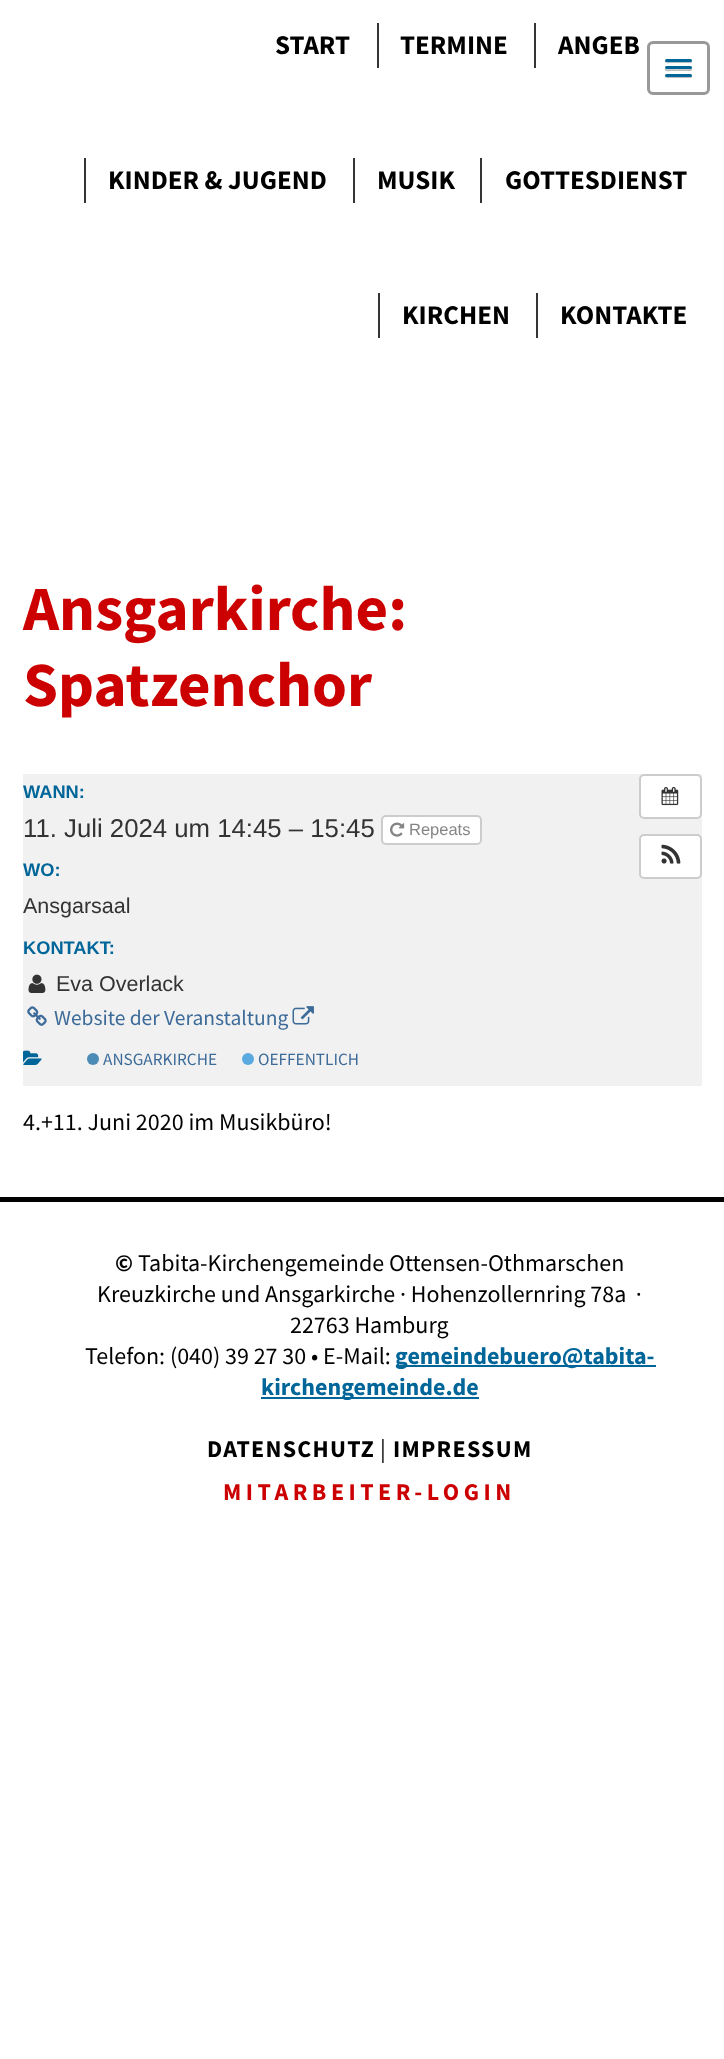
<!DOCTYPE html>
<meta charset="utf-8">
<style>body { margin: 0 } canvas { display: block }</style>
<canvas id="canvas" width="724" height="2059"></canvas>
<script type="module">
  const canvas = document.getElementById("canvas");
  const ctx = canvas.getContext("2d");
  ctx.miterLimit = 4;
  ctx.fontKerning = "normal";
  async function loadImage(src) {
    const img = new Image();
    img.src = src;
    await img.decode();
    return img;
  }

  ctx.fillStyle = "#ffffff";
  ctx.fillRect(0, 0, 724, 2059);
  ctx.font = "bold 27px Source Sans Pro";
  ctx.fillStyle = "#000000";
  ctx.fillText("START", 275, 54);
  ctx.fillStyle = "#353535";
  ctx.fillRect(377, 23, 2, 45);
  ctx.fillStyle = "#000000";
  ctx.fillText("TERMINE", 400, 54);
  ctx.fillStyle = "#353535";
  ctx.fillRect(534, 23, 2, 45);
  ctx.fillStyle = "#000000";
  ctx.fillText("ANGEB", 558, 54);
  ctx.fillStyle = "#353535";
  ctx.fillRect(84, 158, 2, 45);
  ctx.fillStyle = "#000000";
  ctx.fillText("KINDER & JUGEND", 108, 189);
  ctx.fillStyle = "#353535";
  ctx.fillRect(353, 158, 2, 45);
  ctx.fillStyle = "#000000";
  ctx.fillText("MUSIK", 377, 189);
  ctx.fillStyle = "#353535";
  ctx.fillRect(480, 158, 2, 45);
  ctx.fillStyle = "#000000";
  ctx.fillText("GOTTESDIENST", 505, 189);
  ctx.fillStyle = "#353535";
  ctx.fillRect(378, 293, 2, 45);
  ctx.fillStyle = "#000000";
  ctx.fillText("KIRCHEN", 402, 324);
  ctx.fillStyle = "#353535";
  ctx.fillRect(536, 293, 2, 45);
  ctx.fillStyle = "#000000";
  ctx.fillText("KONTAKTE", 560, 324);
  ctx.beginPath();
  ctx.roundRect(648.5, 42.5, 60, 51, 4.5);
  ctx.strokeStyle = "#999999";
  ctx.lineWidth = 3;
  ctx.stroke();
  ctx.fillStyle = "#bfbfbf";
  ctx.beginPath();
  ctx.moveTo(665, 61);
  ctx.bezierCurveTo(664.5, 64, 670, 63, 670.5, 63);
  ctx.lineTo(690.5, 63);
  ctx.bezierCurveTo(692, 63, 692.5, 61, 691.5, 60.5);
  ctx.lineTo(690.5, 61.5);
  ctx.bezierCurveTo(689, 62, 665.5, 61.5, 665, 61);
  ctx.closePath();
  ctx.fill();
  ctx.fillStyle = "#006699";
  ctx.beginPath();
  ctx.roundRect(665, 59, 27, 3, 1.5);
  ctx.fill();
  ctx.fillStyle = "#bfbfbf";
  ctx.beginPath();
  ctx.moveTo(665, 69);
  ctx.bezierCurveTo(663.5, 72, 670.5, 71, 670.5, 71);
  ctx.lineTo(691, 71);
  ctx.bezierCurveTo(692, 70.5, 692.5, 69, 691.5, 68);
  ctx.lineTo(690, 69);
  ctx.bezierCurveTo(688, 69.5, 666, 69.5, 665, 69);
  ctx.closePath();
  ctx.fill();
  ctx.fillStyle = "#006699";
  ctx.beginPath();
  ctx.roundRect(665, 66, 27, 3, 1.5);
  ctx.fill();
  ctx.fillStyle = "#bfbfbf";
  ctx.beginPath();
  ctx.moveTo(665, 76);
  ctx.bezierCurveTo(664.5, 79, 670, 78, 670.5, 78);
  ctx.lineTo(690.5, 78);
  ctx.bezierCurveTo(692, 78, 692.5, 76, 691.5, 75.5);
  ctx.lineTo(690.5, 76.5);
  ctx.bezierCurveTo(689, 77, 665.5, 76.5, 665, 76);
  ctx.closePath();
  ctx.fill();
  ctx.fillStyle = "#006699";
  ctx.beginPath();
  ctx.roundRect(665, 74, 27, 3, 1.5);
  ctx.fill();
  ctx.font = "bold 63px Source Sans Pro";
  ctx.fillStyle = "#cc0000";
  ctx.fillText("Ansgarkirche:", 23, 630);
  ctx.fillText("Spatzenchor", 23, 706);
  ctx.fillStyle = "#f1f1f1";
  ctx.fillRect(23, 774, 679, 312);
  ctx.font = "bold 18.25px Liberation Sans";
  ctx.fillStyle = "#006699";
  ctx.fillText("WANN:", 23, 798);
  ctx.font = "25.75px Liberation Sans";
  ctx.fillStyle = "#333333";
  ctx.fillText("11. Juli 2024 um 14:45 – 15:45", 23, 837);
  ctx.fillStyle = "#ffffff";
  ctx.beginPath();
  ctx.roundRect(382, 816, 99, 28, 4);
  ctx.fill();
  ctx.strokeStyle = "#cccccc";
  ctx.lineWidth = 2;
  ctx.stroke();
  ctx.drawImage(await loadImage("img1.png"), 390, 822, 15, 15);
  ctx.font = "16.5px Liberation Sans";
  ctx.fillStyle = "#858585";
  ctx.fillText("Repeats", 409, 835);
  ctx.font = "bold 18.25px Liberation Sans";
  ctx.fillStyle = "#006699";
  ctx.fillText("WO:", 23, 876);
  ctx.font = "21.5px Liberation Sans";
  ctx.fillStyle = "#333333";
  ctx.fillText("Ansgarsaal", 23, 913);
  ctx.font = "bold 18.25px Liberation Sans";
  ctx.fillStyle = "#006699";
  ctx.fillText("KONTAKT:", 23, 954);
  ctx.drawImage(await loadImage("img2.png"), 28, 974, 18, 19);
  ctx.font = "21.5px Liberation Sans";
  ctx.fillStyle = "#333333";
  ctx.fillText("Eva Overlack", 56, 991);
  ctx.drawImage(await loadImage("img3.png"), 27, 1006, 20, 20);
  ctx.font = "21.5px Source Sans Pro";
  ctx.fillStyle = "#3d6b99";
  ctx.fillText("Website der Veranstaltung", 54, 1025);
  ctx.drawImage(await loadImage("img4.png"), 292, 1006, 22, 19);
  ctx.drawImage(await loadImage("img5.png"), 23, 1050, 19, 15);
  ctx.fillStyle = "#4b8cb7";
  ctx.beginPath();
  ctx.arc(93, 1059, 6, 0, Math.PI * 2);
  ctx.fill();
  ctx.font = "17.25px Source Sans Pro";
  ctx.fillStyle = "#3d6b99";
  ctx.fillText("ANSGARKIRCHE", 103, 1065);
  ctx.fillStyle = "#5aaadf";
  ctx.beginPath();
  ctx.arc(248, 1059, 6, 0, Math.PI * 2);
  ctx.fill();
  ctx.fillStyle = "#3d6b99";
  ctx.fillText("OEFFENTLICH", 258, 1065);
  ctx.fillStyle = "#ffffff";
  ctx.beginPath();
  ctx.roundRect(640, 775, 61, 43, 4);
  ctx.fill();
  ctx.stroke();
  ctx.drawImage(await loadImage("img6.png"), 661, 787, 18, 19);
  ctx.beginPath();
  ctx.roundRect(640, 835, 61, 43, 4);
  ctx.fill();
  ctx.stroke();
  ctx.drawImage(await loadImage("img7.png"), 661, 844, 20, 20);
  ctx.font = "24px Source Sans Pro";
  ctx.fillStyle = "#000000";
  ctx.fillText("4.+11. Juni 2020 im Musikbüro!", 23, 1130);
  ctx.fillRect(0, 1197, 724, 5);
  ctx.font = "bold 24px Source Sans Pro";
  ctx.fillText("©", 115, 1271);
  ctx.font = "24px Source Sans Pro";
  ctx.fillText("Tabita-Kirchengemeinde Ottensen-Othmarschen", 138, 1271);
  ctx.fillText("Kreuzkirche und Ansgarkirche · Hohenzollernring 78a  ·", 97, 1302);
  ctx.fillText("22763 Hamburg", 290, 1333);
  ctx.fillText("Telefon: (040) 39 27 30 • E-Mail:", 85, 1364);
  ctx.fillStyle = "#006699";
  ctx.fillRect(396, 1365, 260, 2);
  ctx.font = "bold 24px Source Sans Pro";
  ctx.fillText("gemeindebuero@tabita-", 395, 1364);
  ctx.fillRect(261, 1397, 218, 2);
  ctx.fillText("kirchengemeinde.de", 261, 1395);
  ctx.letterSpacing = "1.25px";
  ctx.fillStyle = "#000000";
  ctx.fillText("DATENSCHUTZ", 207, 1457);
  ctx.font = "24px Source Sans Pro";
  ctx.fillText("|", 380, 1457);
  ctx.font = "bold 24px Source Sans Pro";
  ctx.fillText("IMPRESSUM", 393, 1457);
  ctx.letterSpacing = "4.5px";
  ctx.fillStyle = "#cc0000";
  ctx.fillText("MITARBEITER-LOGIN", 223, 1500);
</script>
